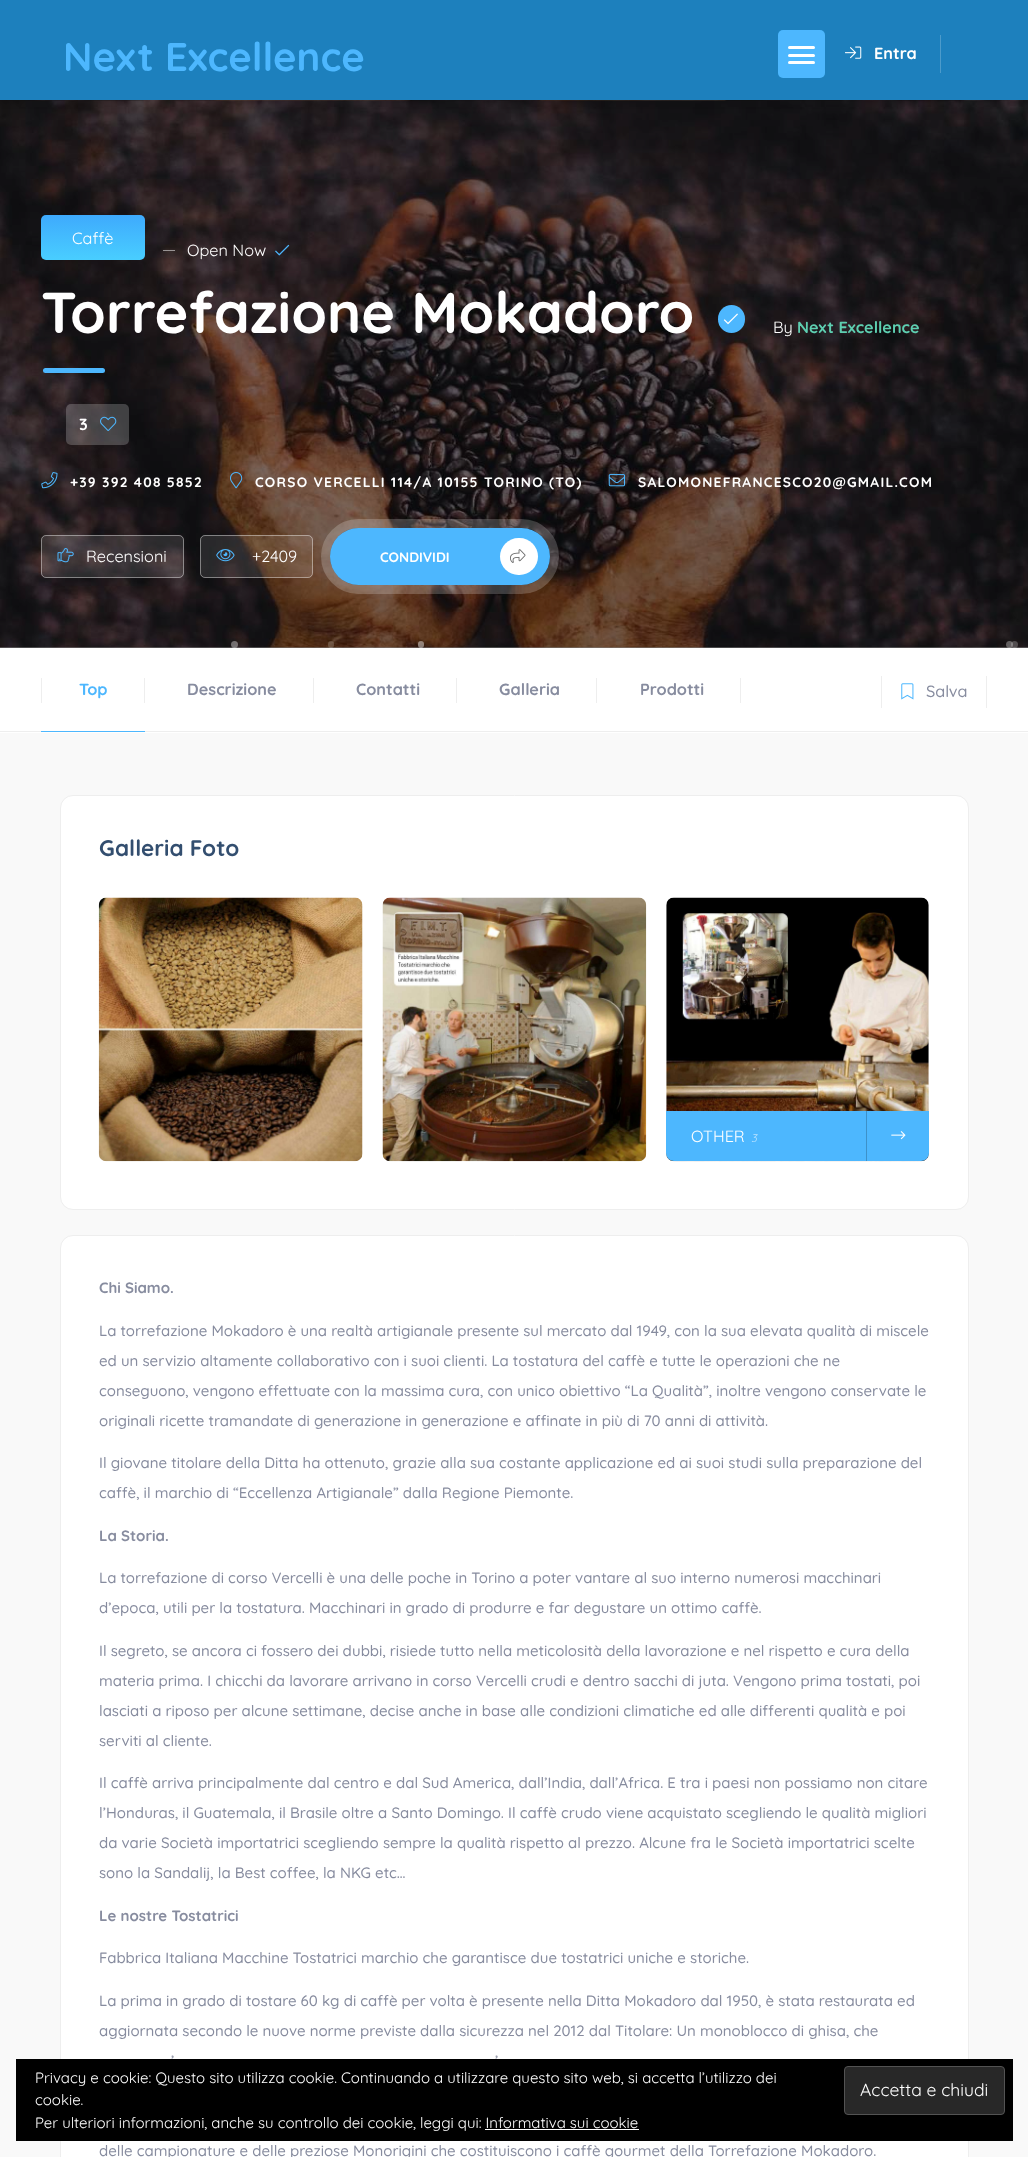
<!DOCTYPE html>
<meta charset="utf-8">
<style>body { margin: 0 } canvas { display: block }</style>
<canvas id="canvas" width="1028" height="2157"></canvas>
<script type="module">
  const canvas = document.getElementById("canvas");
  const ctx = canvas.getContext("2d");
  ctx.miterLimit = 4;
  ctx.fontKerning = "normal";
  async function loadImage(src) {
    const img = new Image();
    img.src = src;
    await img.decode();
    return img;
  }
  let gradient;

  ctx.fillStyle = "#ffffff";
  ctx.fillRect(0, 0, 1028, 2157);
  ctx.fillStyle = "#808080";
  ctx.fillRect(0, 647, 1028, 1);
  ctx.drawImage(await loadImage("img2.png"), 0, 100, 1028, 548);
  ctx.fillStyle = "rgba(0, 0, 0, 0.12)";
  ctx.filter = "blur(5px)";
  ctx.beginPath();
  ctx.rect(0, 0, 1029, 100);
  ctx.fill();
  ctx.filter = "none";
  ctx.fillStyle = "#1d80bd";
  ctx.fillRect(0, 0, 1028, 100);
  ctx.font = "bold 40px Quicksand";
  ctx.fillStyle = "#4db7fe";
  ctx.fillText("Next Excellence", 63, 71);
  ctx.beginPath();
  ctx.roundRect(778, 30, 47, 48, 5);
  ctx.fill();
  ctx.fillStyle = "#ffffff";
  ctx.beginPath();
  ctx.roundRect(788, 46, 27, 3, 1.5);
  ctx.fill();
  ctx.beginPath();
  ctx.roundRect(788, 54, 27, 3, 1.5);
  ctx.fill();
  ctx.beginPath();
  ctx.roundRect(788, 61, 27, 3, 1.5);
  ctx.fill();
  ctx.drawImage(await loadImage("img1.png"), 845, 46, 17, 13);
  ctx.font = "bold 16.25px Quicksand";
  ctx.fillText("Entra", 874, 59);
  ctx.fillStyle = "#4c9bcb";
  ctx.fillRect(940, 35, 1, 38);
  gradient = ctx.createLinearGradient(93, 215, 93, 260);
  gradient.addColorStop(0, "#3eaafd");
  gradient.addColorStop(1, "#49ceff");
  ctx.fillStyle = gradient;
  ctx.beginPath();
  ctx.roundRect(41, 215, 104, 45, 5);
  ctx.fill();
  ctx.font = "16.25px Quicksand";
  ctx.fillStyle = "#ffffff";
  ctx.fillText("Caffè", 72, 244);
  ctx.fillStyle = "rgba(255, 255, 255, 0.51)";
  ctx.fillRect(163, 250, 12, 1);
  ctx.fillStyle = "#ffffff";
  ctx.fillText("Open Now", 187, 256);
  ctx.drawImage(await loadImage("img3.png"), 275, 244, 15, 12);
  ctx.font = "bold 57.5px Quicksand";
  ctx.fillText("Torrefazione Mokadoro", 41, 333);
  ctx.fillStyle = "#4db7fe";
  ctx.beginPath();
  ctx.roundRect(718, 305, 27, 28, 13.5);
  ctx.fill();
  ctx.drawImage(await loadImage("img4.png"), 723, 313, 15, 12);
  ctx.font = "16.25px Quicksand";
  ctx.fillStyle = "#ffffff";
  ctx.fillText("By", 773, 333);
  ctx.font = "bold 16.25px Quicksand";
  ctx.fillStyle = "#5ecfb1";
  ctx.fillText("Next Excellence", 797, 333);
  ctx.fillStyle = "#4db7fe";
  ctx.beginPath();
  ctx.roundRect(43, 368, 62, 5, 2.5);
  ctx.fill();
  ctx.fillStyle = "rgba(255, 255, 255, 0.21)";
  ctx.beginPath();
  ctx.roundRect(66, 404, 63, 41, 5);
  ctx.fill();
  ctx.fillStyle = "#ffffff";
  ctx.fillText("3", 79, 430);
  ctx.drawImage(await loadImage("img5.png"), 100, 416, 17, 15);
  ctx.drawImage(await loadImage("img6.png"), 41, 472, 17, 17);
  ctx.letterSpacing = "1.25px";
  ctx.font = "bold 13.75px Quicksand";
  ctx.fillText("+39 392 408 5852", 70, 487);
  ctx.drawImage(await loadImage("img7.png"), 230, 472, 13, 17);
  ctx.fillText("CORSO VERCELLI 114/A 10155 TORINO (TO)", 255, 487);
  ctx.drawImage(await loadImage("img8.png"), 608, 474, 17, 13);
  ctx.fillText("SALOMONEFRANCESCO20@GMAIL.COM", 638, 487);
  ctx.fillStyle = "rgba(255, 255, 255, 0.11)";
  ctx.beginPath();
  ctx.roundRect(41, 535, 143, 43, 5);
  ctx.fill();
  ctx.beginPath();
  ctx.roundRect(41.5, 535.5, 142, 42, 4.5);
  ctx.strokeStyle = "rgba(255, 255, 255, 0.41)";
  ctx.stroke();
  ctx.drawImage(await loadImage("img9.png"), 57, 548, 17, 15);
  ctx.letterSpacing = "0px";
  ctx.font = "16.25px Quicksand";
  ctx.fillStyle = "#ffffff";
  ctx.fillText("Recensioni", 86, 562);
  ctx.fillStyle = "rgba(255, 255, 255, 0.11)";
  ctx.beginPath();
  ctx.roundRect(200, 535, 113, 43, 5);
  ctx.fill();
  ctx.beginPath();
  ctx.roundRect(200.5, 535.5, 112, 42, 4.5);
  ctx.stroke();
  ctx.drawImage(await loadImage("img10.png"), 216, 549, 19, 13);
  ctx.fillStyle = "#ffffff";
  ctx.fillText("+2409", 252, 562);
  ctx.beginPath();
  ctx.roundRect(325.5, 523.5, 229, 66, 33);
  ctx.strokeStyle = "rgba(255, 255, 255, 0.2)";
  ctx.lineWidth = 9;
  ctx.stroke();
  ctx.fillStyle = "#4db7fe";
  ctx.beginPath();
  ctx.roundRect(330, 528, 220, 57, 28.5);
  ctx.fill();
  ctx.font = "bold 13.75px Quicksand";
  ctx.fillStyle = "#ffffff";
  ctx.fillText("CONDIVIDI", 380, 562);
  ctx.beginPath();
  ctx.roundRect(500, 538, 38, 37, 18.5);
  ctx.fill();
  ctx.drawImage(await loadImage("img11.png"), 510, 549, 16, 14);
  ctx.fillStyle = "rgba(255, 255, 255, 0.38)";
  ctx.beginPath();
  ctx.arc(234.5, 644.5, 3.5, 0, Math.PI * 2);
  ctx.fill();
  ctx.fillStyle = "rgba(255, 255, 255, 0.18)";
  ctx.beginPath();
  ctx.roundRect(328, 641, 6, 7, 3);
  ctx.fill();
  ctx.fillStyle = "rgba(255, 255, 255, 0.44)";
  ctx.beginPath();
  ctx.roundRect(418, 641, 6, 7, 3);
  ctx.fill();
  ctx.fillStyle = "rgba(255, 255, 255, 0.23)";
  ctx.beginPath();
  ctx.arc(1014.5, 644.5, 3.5, 0, Math.PI * 2);
  ctx.fill();
  ctx.fillStyle = "rgba(255, 255, 255, 0.32)";
  ctx.beginPath();
  ctx.arc(1009.5, 644.5, 3.5, 0, Math.PI * 2);
  ctx.fill();
  ctx.fillStyle = "#eeeeee";
  ctx.fillRect(0, 731, 1028, 1);
  ctx.fillRect(41, 678, 1, 25);
  ctx.font = "bold 16.25px Quicksand";
  ctx.fillStyle = "#4db7fe";
  ctx.fillText("Top", 79, 695);
  ctx.fillRect(41, 731, 104, 1);
  ctx.fillStyle = "#eeeeee";
  ctx.fillRect(144, 678, 1, 25);
  ctx.fillStyle = "#878c9f";
  ctx.fillText("Descrizione", 187, 695);
  ctx.fillStyle = "#eeeeee";
  ctx.fillRect(313, 678, 1, 25);
  ctx.fillStyle = "#878c9f";
  ctx.fillText("Contatti", 356, 695);
  ctx.fillStyle = "#eeeeee";
  ctx.fillRect(456, 678, 1, 25);
  ctx.fillStyle = "#878c9f";
  ctx.fillText("Galleria", 499, 695);
  ctx.fillStyle = "#eeeeee";
  ctx.fillRect(596, 678, 1, 25);
  ctx.fillStyle = "#878c9f";
  ctx.fillText("Prodotti", 640, 695);
  ctx.fillStyle = "#eeeeee";
  ctx.fillRect(740, 678, 1, 25);
  ctx.fillRect(986, 676, 1, 32);
  ctx.fillRect(881, 676, 1, 32);
  ctx.drawImage(await loadImage("img12.png"), 901, 683, 13, 17);
  ctx.font = "500 16.25px Quicksand";
  ctx.fillStyle = "#878c9f";
  ctx.fillText("Salva", 926, 697);
  ctx.fillStyle = "#f9f9f9";
  ctx.fillRect(0, 733, 1028, 1424);
  ctx.fillStyle = "#ffffff";
  ctx.beginPath();
  ctx.roundRect(60.5, 795.5, 908, 414, 12.5);
  ctx.fill();
  ctx.strokeStyle = "#eeeeee";
  ctx.lineWidth = 1;
  ctx.stroke();
  ctx.font = "bold 22.5px Quicksand";
  ctx.fillStyle = "#334e6f";
  ctx.fillText("Galleria Foto", 99, 856);
  ctx.drawImage(await loadImage("img13.png"), 98, 897, 265, 265);
  ctx.drawImage(await loadImage("img14.png"), 382, 897, 265, 265);
  ctx.drawImage(await loadImage("img15.png"), 666, 897, 263, 265);
  ctx.fillStyle = "#4db7fe";
  ctx.beginPath();
  ctx.roundRect(666, 1111, 263, 50, [0, 0, 8, 8]);
  ctx.fill();
  ctx.font = "16.25px Quicksand";
  ctx.fillStyle = "#ffffff";
  ctx.fillText("OTHER", 691, 1142);
  ctx.font = "italic 11px Quicksand";
  ctx.fillStyle = "#bae3ff";
  ctx.fillText("3", 751, 1142);
  ctx.fillStyle = "#3d91c9";
  ctx.fillRect(866, 1111, 1, 50);
  ctx.drawImage(await loadImage("img16.png"), 891, 1131, 15, 9);
  ctx.fillStyle = "#ffffff";
  ctx.beginPath();
  ctx.roundRect(60.5, 1235.5, 908, 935, 12.5);
  ctx.fill();
  ctx.stroke();
  ctx.font = "bold 15px Quicksand";
  ctx.fillStyle = "#878c9f";
  ctx.fillText("Chi Siamo.", 99, 1293);
  ctx.font = "500 15px Quicksand";
  ctx.fillText("La torrefazione Mokadoro è una realtà artigianale presente sul mercato dal 1949, con la sua elevata qualità di miscele", 99, 1336);
  ctx.fillText("ed un servizio altamente collaborativo con i suoi clienti. La tostatura del caffè e tutte le operazioni che ne", 99, 1366);
  ctx.fillText("conseguono, vengono effettuate con la massima cura, con unico obiettivo “La Qualità”, inoltre vengono conservate le", 99, 1396);
  ctx.fillText("originali ricette tramandate di generazione in generazione e affinate in più di 70 anni di attività.", 99, 1426);
  ctx.fillText("Il giovane titolare della Ditta ha ottenuto, grazie alla sua costante applicazione ed ai suoi studi sulla preparazione del", 99, 1468);
  ctx.fillText("caffè, il marchio di “Eccellenza Artigianale” dalla Regione Piemonte.", 99, 1498);
  ctx.font = "bold 15px Quicksand";
  ctx.fillText("La Storia.", 99, 1541);
  ctx.font = "500 15px Quicksand";
  ctx.fillText("La torrefazione di corso Vercelli è una delle poche in Torino a poter vantare al suo interno numerosi macchinari", 99, 1583);
  ctx.fillText("d’epoca, utili per la tostatura. Macchinari in grado di produrre e far degustare un ottimo caffè.", 99, 1613);
  ctx.fillText("Il segreto, se ancora ci fossero dei dubbi, risiede tutto nella meticolosità della lavorazione e nel rispetto e cura della", 99, 1656);
  ctx.fillText("materia prima. I chicchi da lavorare arrivano in corso Vercelli crudi e dentro sacchi di juta. Vengono prima tostati, poi", 99, 1686);
  ctx.fillText("lasciati a riposo per alcune settimane, decise anche in base alle condizioni climatiche ed alle differenti qualità e poi", 99, 1716);
  ctx.fillText("serviti al cliente.", 99, 1746);
  ctx.fillText("Il caffè arriva principalmente dal centro e dal Sud America, dall’India, dall’Africa. E tra i paesi non possiamo non citare", 99, 1788);
  ctx.fillText("l’Honduras, il Guatemala, il Brasile oltre a Santo Domingo. Il caffè crudo viene acquistato scegliendo le qualità migliori", 99, 1818);
  ctx.fillText("da varie Società importatrici scegliendo sempre la qualità rispetto al prezzo. Alcune fra le Società importatrici scelte", 99, 1848);
  ctx.fillText("sono la Sandalij, la Best coffee, la NKG etc…", 99, 1878);
  ctx.font = "bold 15px Quicksand";
  ctx.fillText("Le nostre Tostatrici", 99, 1921);
  ctx.font = "500 15px Quicksand";
  ctx.fillText("Fabbrica Italiana Macchine Tostatrici marchio che garantisce due tostatrici uniche e storiche.", 99, 1963);
  ctx.fillText("La prima in grado di tostare 60 kg di caffè per volta è presente nella Ditta Mokadoro dal 1950, è stata restaurata ed", 99, 2006);
  ctx.fillText("aggiornata secondo le nuove norme previste dalla sicurezza nel 2012 dal Titolare: Un monoblocco di ghisa, che", 99, 2036);
  ctx.fillText("’", 171, 2066);
  ctx.fillText("’", 495, 2066);
  ctx.fillText("delle campionature e delle preziose Monorigini che costituiscono i caffè gourmet della Torrefazione Mokadoro.", 99, 2156);
  ctx.fillStyle = "#000000";
  ctx.fillRect(16, 2059, 997, 82);
  ctx.font = "15px Quicksand";
  ctx.fillStyle = "#ffffff";
  ctx.fillText("Privacy e cookie: Questo sito utilizza cookie. Continuando a utilizzare questo sito web, si accetta l’utilizzo dei", 35, 2083);
  ctx.fillStyle = "#282828";
  ctx.beginPath();
  ctx.roundRect(844.5, 2066.5, 160, 48, 3.5);
  ctx.fill();
  ctx.strokeStyle = "#535353";
  ctx.stroke();
  ctx.font = "17.5px Quicksand";
  ctx.fillStyle = "#ffffff";
  ctx.fillText("Accetta e chiudi", 860, 2096);
  ctx.font = "15px Quicksand";
  ctx.fillText("cookie.", 35, 2105);
  ctx.fillText("Per ulteriori informazioni, anche su controllo dei cookie, leggi qui: Informativa sui cookie", 35, 2128);
  ctx.fillRect(485, 2129, 154, 1);
</script>
